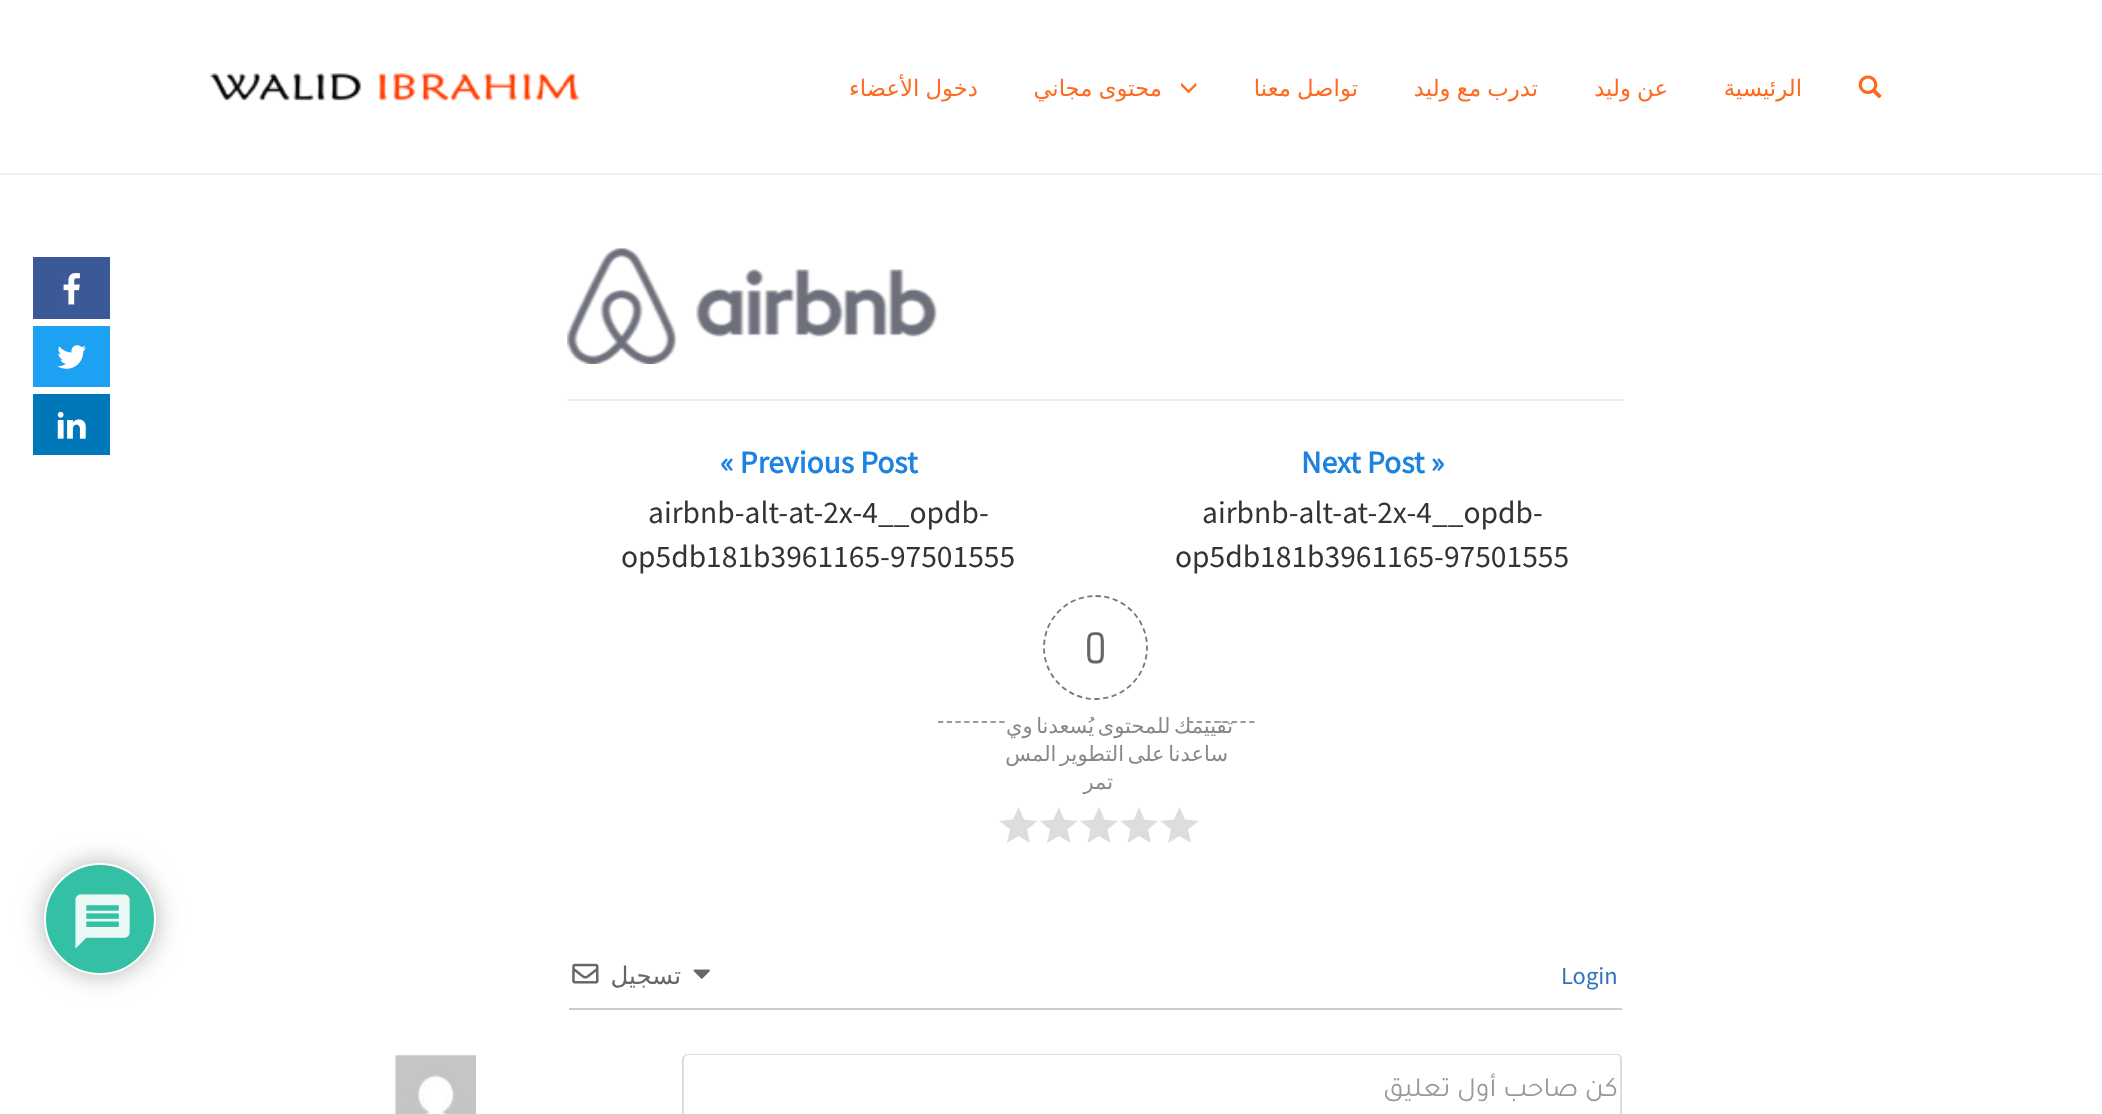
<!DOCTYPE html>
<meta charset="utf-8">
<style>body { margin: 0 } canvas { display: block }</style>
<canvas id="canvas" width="2102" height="1114"></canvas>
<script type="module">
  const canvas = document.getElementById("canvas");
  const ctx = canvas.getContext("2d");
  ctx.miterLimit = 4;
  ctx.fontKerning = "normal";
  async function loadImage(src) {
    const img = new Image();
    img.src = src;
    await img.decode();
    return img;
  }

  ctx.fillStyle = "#ffffff";
  ctx.fillRect(0, 0, 2102, 1114);
  ctx.fillStyle = "#f0f0f0";
  ctx.fillRect(0, 173, 2102, 2);
  ctx.drawImage(await loadImage("img1.png"), 1858, 75, 24, 24);
  ctx.direction = "rtl";
  ctx.font = "22.75px DejaVu Sans";
  ctx.fillStyle = "#ff6920";
  ctx.fillText("الرئيسية", 1802, 96);
  ctx.wordSpacing = "-1px";
  ctx.fillText("عن وليد", 1668, 96);
  ctx.fillText("تدرب مع وليد", 1538, 96);
  ctx.fillText("تواصل معنا", 1358, 96);
  ctx.drawImage(await loadImage("img2.png"), 1181, 82, 16, 12);
  ctx.fillText("محتوى مجاني", 1162, 96);
  ctx.fillText("دخول الأعضاء", 978, 96);
  ctx.drawImage(await loadImage("img3.png"), 209, 73, 371, 28);
  ctx.fillStyle = "#3b5998";
  ctx.fillRect(33, 257, 77, 62);
  ctx.drawImage(await loadImage("img4.png"), 63, 273, 17, 32);
  ctx.fillStyle = "#1da1f3";
  ctx.fillRect(33, 326, 77, 61);
  ctx.drawImage(await loadImage("img5.png"), 57, 345, 30, 24);
  ctx.fillStyle = "#0077b9";
  ctx.fillRect(33, 394, 77, 61);
  ctx.drawImage(await loadImage("img6.png"), 57, 411, 29, 28);
  ctx.drawImage(await loadImage("img7.png"), 567, 248, 370, 116);
  ctx.fillStyle = "#eeeeee";
  ctx.fillRect(567, 399, 1057, 2);
  ctx.wordSpacing = "0px";
  ctx.direction = "ltr";
  ctx.font = "bold 31.5px Source Sans Pro";
  ctx.fillStyle = "#1d82e0";
  ctx.fillText("Next Post »", 1301, 473);
  ctx.font = "31.5px Source Sans Pro";
  ctx.fillStyle = "#333333";
  ctx.fillText("airbnb-alt-at-2x-4__opdb-", 1202, 523);
  ctx.fillText("op5db181b3961165-97501555", 1175, 567);
  ctx.font = "bold 31.5px Source Sans Pro";
  ctx.fillStyle = "#1d82e0";
  ctx.fillText("« Previous Post", 720, 473);
  ctx.font = "31.5px Source Sans Pro";
  ctx.fillStyle = "#333333";
  ctx.fillText("airbnb-alt-at-2x-4__opdb-", 648, 523);
  ctx.fillText("op5db181b3961165-97501555", 621, 567);
  ctx.beginPath();
  ctx.moveTo(1095.5, 596);
  ctx.bezierCurveTo(1124, 596, 1147, 619, 1147, 647.5);
  ctx.bezierCurveTo(1147, 676, 1124, 699, 1095.5, 699);
  ctx.bezierCurveTo(1067, 699, 1044, 676, 1044, 647.5);
  ctx.bezierCurveTo(1044, 619, 1067, 596, 1095.5, 596);
  ctx.closePath();
  ctx.strokeStyle = "#777777";
  ctx.lineWidth = 1.8;
  ctx.setLineDash([5.25, 3.5]);
  ctx.stroke();
  ctx.font = "42px 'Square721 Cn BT'";
  ctx.fillStyle = "#666666";
  ctx.fillText("0", 1085, 663);
  ctx.beginPath();
  ctx.moveTo(938, 722);
  ctx.lineTo(1004.5, 722);
  ctx.strokeStyle = "#999999";
  ctx.stroke();
  ctx.letterSpacing = "0.9px";
  ctx.wordSpacing = "-4px";
  ctx.direction = "rtl";
  ctx.font = "21px DejaVu Sans";
  ctx.fillStyle = "#888888";
  ctx.fillText("تقييمك للمحتوى يُسعدنا وي", 1233, 733);
  ctx.fillText("ساعدنا على التطوير المس", 1228, 761);
  ctx.wordSpacing = "0px";
  ctx.fillText("تمر", 1113, 789);
  ctx.fillStyle = "#dddddd";
  ctx.beginPath();
  ctx.moveTo(1179.5, 836);
  ctx.lineTo(1191, 843);
  ctx.lineTo(1188, 829.5);
  ctx.lineTo(1198.5, 821);
  ctx.lineTo(1185, 819.5);
  ctx.lineTo(1179.5, 807);
  ctx.lineTo(1174, 819.5);
  ctx.lineTo(1160.5, 821);
  ctx.lineTo(1171, 829.5);
  ctx.lineTo(1168, 843);
  ctx.closePath();
  ctx.fill();
  ctx.beginPath();
  ctx.moveTo(1139, 836);
  ctx.lineTo(1151, 843);
  ctx.lineTo(1148, 829.5);
  ctx.lineTo(1158, 821);
  ctx.lineTo(1144.5, 819.5);
  ctx.lineTo(1139, 807);
  ctx.lineTo(1134, 819.5);
  ctx.lineTo(1120.5, 821);
  ctx.lineTo(1130.5, 829.5);
  ctx.lineTo(1127.5, 843);
  ctx.closePath();
  ctx.fill();
  ctx.beginPath();
  ctx.moveTo(1099, 836);
  ctx.lineTo(1110.5, 843);
  ctx.lineTo(1107.5, 829.5);
  ctx.lineTo(1118, 821);
  ctx.lineTo(1104.5, 819.5);
  ctx.lineTo(1099, 807);
  ctx.lineTo(1093.5, 819.5);
  ctx.lineTo(1080, 821);
  ctx.lineTo(1090.5, 829.5);
  ctx.lineTo(1087.5, 843);
  ctx.closePath();
  ctx.fill();
  ctx.beginPath();
  ctx.moveTo(1059, 836);
  ctx.lineTo(1070.5, 843);
  ctx.lineTo(1067.5, 829.5);
  ctx.lineTo(1077.5, 821);
  ctx.lineTo(1064, 819.5);
  ctx.lineTo(1059, 807);
  ctx.lineTo(1053.5, 819.5);
  ctx.lineTo(1040, 821);
  ctx.lineTo(1050, 829.5);
  ctx.lineTo(1047, 843);
  ctx.closePath();
  ctx.fill();
  ctx.beginPath();
  ctx.moveTo(1018.5, 836);
  ctx.lineTo(1030, 843);
  ctx.lineTo(1027, 829.5);
  ctx.lineTo(1037.5, 821);
  ctx.lineTo(1024, 819.5);
  ctx.lineTo(1018.5, 807);
  ctx.lineTo(1013, 819.5);
  ctx.lineTo(999.5, 821);
  ctx.lineTo(1010, 829.5);
  ctx.lineTo(1007, 843);
  ctx.closePath();
  ctx.fill();
  ctx.beginPath();
  ctx.moveTo(1188, 722);
  ctx.lineTo(1255, 722);
  ctx.stroke();
  ctx.fillStyle = "#cccccc";
  ctx.fillRect(569, 1008, 1053, 2);
  ctx.letterSpacing = "0px";
  ctx.direction = "ltr";
  ctx.font = "24.5px Source Sans Pro";
  ctx.fillStyle = "#3272bf";
  ctx.fillText("Login", 1561, 984);
  ctx.drawImage(await loadImage("img8.png"), 693, 969, 17, 10);
  ctx.direction = "rtl";
  ctx.font = "24.5px DejaVu Sans";
  ctx.fillStyle = "#666666";
  ctx.fillText("تسجيل", 681, 984);
  ctx.drawImage(await loadImage("img9.png"), 572, 963, 27, 21);
  ctx.fillStyle = "#dddddd";
  ctx.beginPath();
  ctx.moveTo(688, 1054);
  ctx.lineTo(1617, 1054);
  ctx.bezierCurveTo(1620, 1054, 1622, 1056, 1622, 1059);
  ctx.lineTo(1622, 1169);
  ctx.lineTo(682, 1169);
  ctx.lineTo(682, 1059);
  ctx.bezierCurveTo(682, 1056, 685, 1054, 688, 1054);
  ctx.closePath();
  ctx.moveTo(688, 1055);
  ctx.lineTo(1617, 1055);
  ctx.bezierCurveTo(1619, 1055, 1620, 1057, 1620, 1059);
  ctx.lineTo(1620, 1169);
  ctx.lineTo(684, 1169);
  ctx.lineTo(684, 1059);
  ctx.bezierCurveTo(684, 1057, 686, 1055, 688, 1055);
  ctx.closePath();
  ctx.fill("evenodd");
  ctx.letterSpacing = "1.75px";
  ctx.wordSpacing = "-2px";
  ctx.font = "28px Tajawal";
  ctx.fillStyle = "#999999";
  ctx.fillText("كن صاحب أول تعليق", 1618, 1096);
  ctx.drawImage(await loadImage("img10.png"), 395, 1055, 81, 59);
  ctx.fillStyle = "#b3b3b3";
  ctx.filter = "blur(13px)";
  ctx.beginPath();
  ctx.roundRect(44, 863, 112, 112, 56);
  ctx.fill();
  ctx.filter = "none";
  ctx.fillStyle = "#34c0a4";
  ctx.beginPath();
  ctx.arc(100, 919, 55, 0, Math.PI * 2);
  ctx.fill();
  ctx.strokeStyle = "#ffffff";
  ctx.lineWidth = 2;
  ctx.setLineDash([]);
  ctx.stroke();
  ctx.drawImage(await loadImage("img11.png"), 75, 894, 55, 55);
</script>
